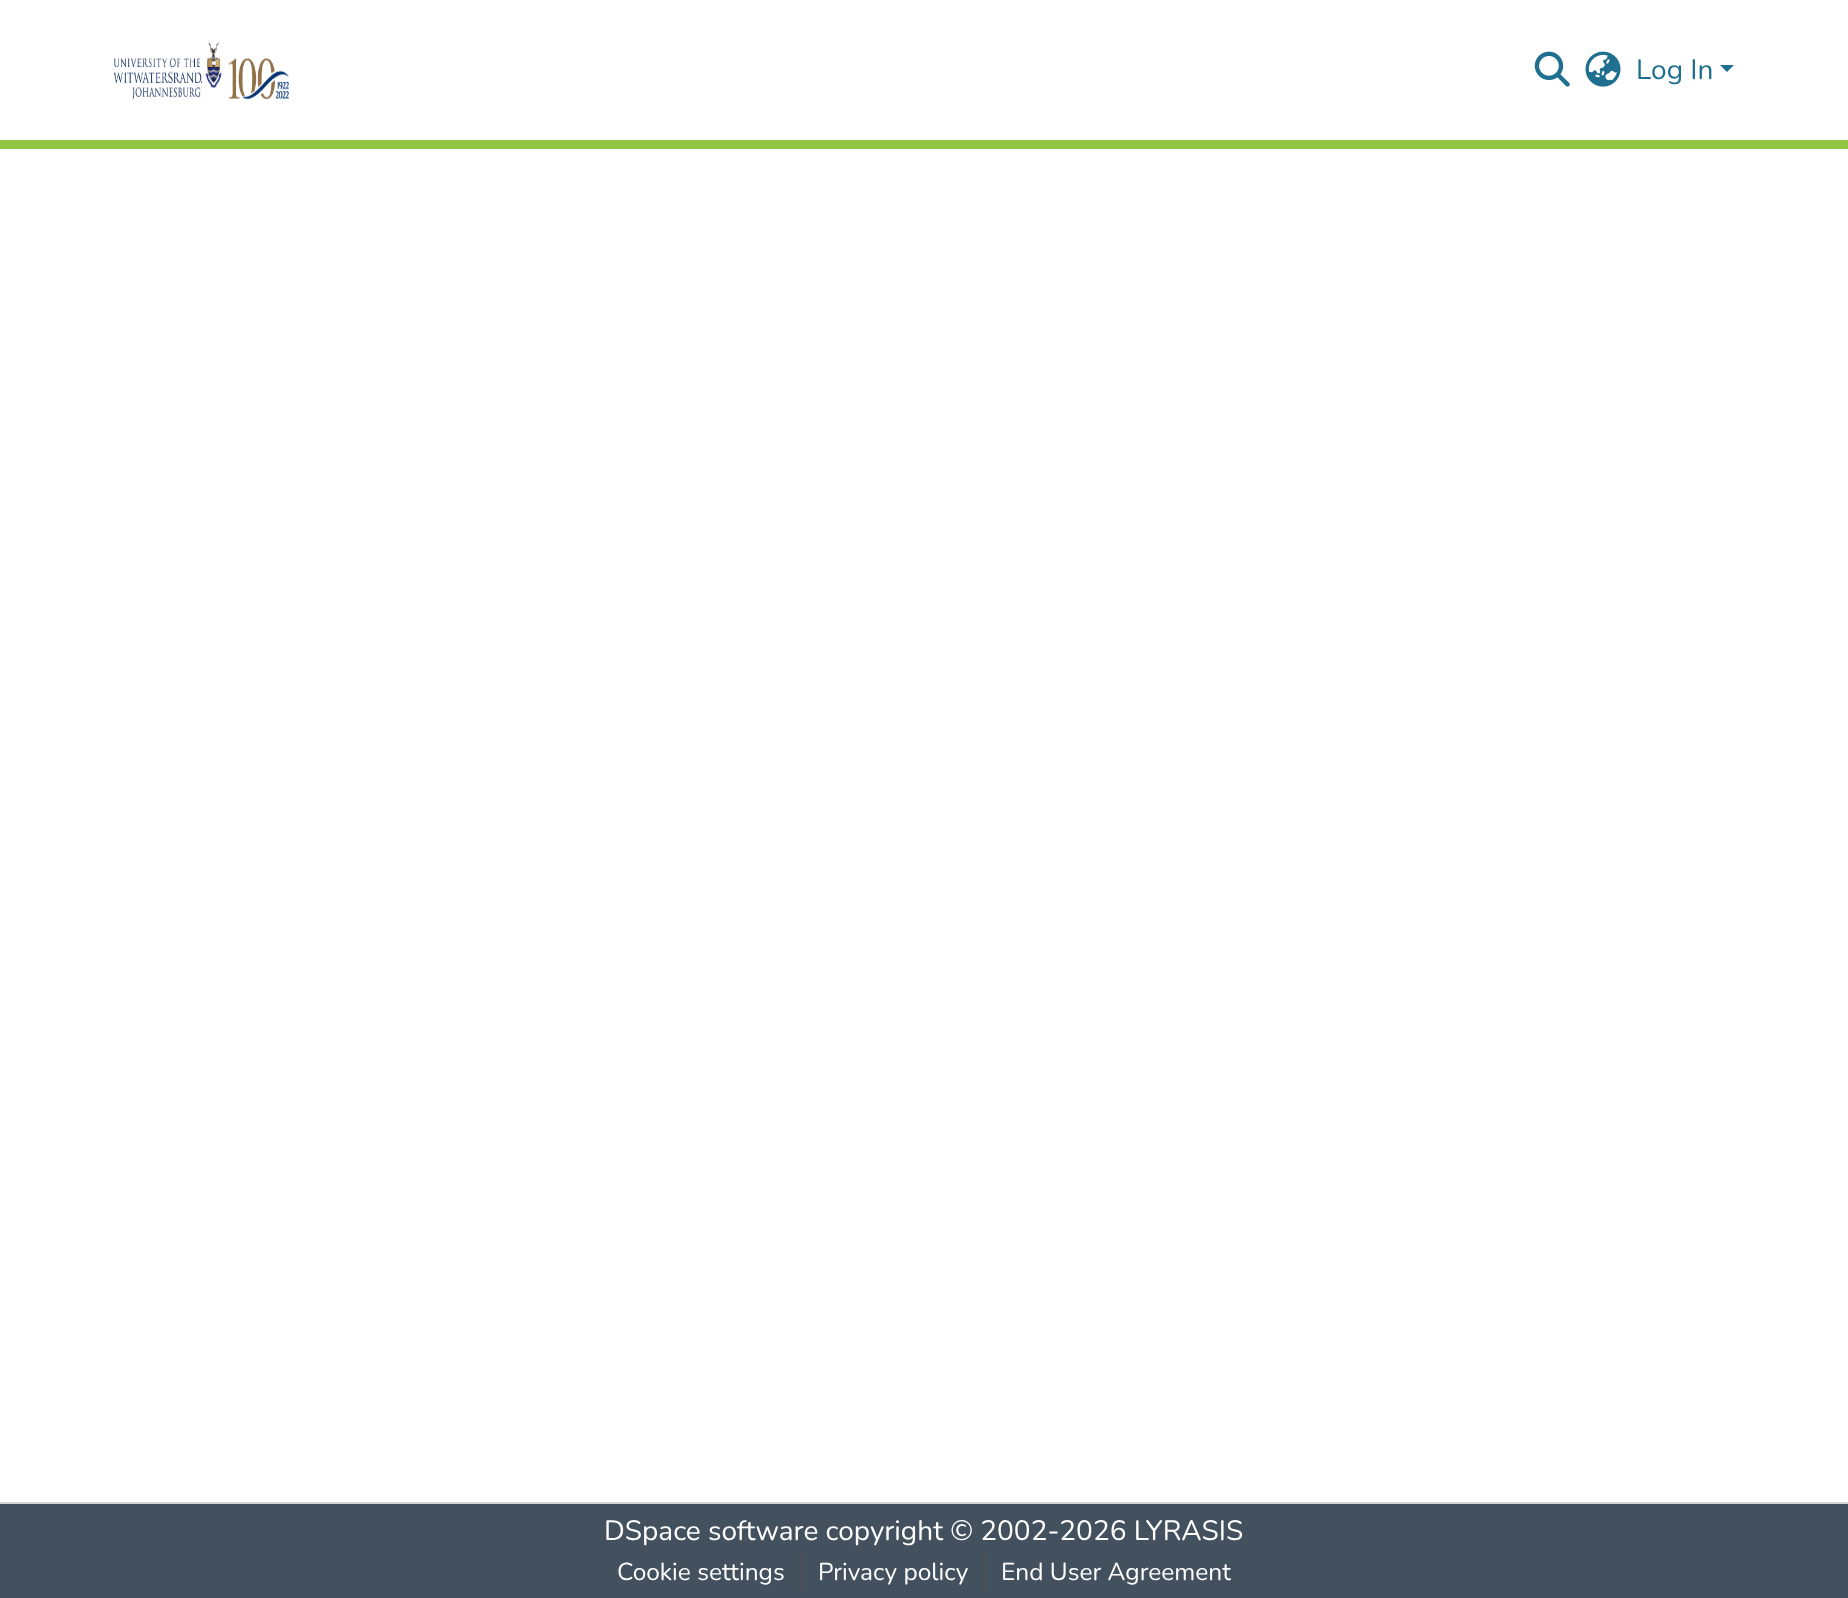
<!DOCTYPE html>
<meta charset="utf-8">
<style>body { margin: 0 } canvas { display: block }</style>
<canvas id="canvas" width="1848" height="1598"></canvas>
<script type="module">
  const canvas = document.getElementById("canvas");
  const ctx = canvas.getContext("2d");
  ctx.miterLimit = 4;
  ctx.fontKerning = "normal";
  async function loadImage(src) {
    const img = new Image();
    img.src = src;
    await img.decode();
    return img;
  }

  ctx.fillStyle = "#ffffff";
  ctx.fillRect(0, 0, 1848, 1598);
  ctx.fillStyle = "#92c642";
  ctx.fillRect(0, 140, 1848, 9);
  ctx.drawImage(await loadImage("img1.png"), 114, 40, 175, 60);
  ctx.drawImage(await loadImage("img2.png"), 1534, 51, 36, 36);
  ctx.drawImage(await loadImage("img3.png"), 1585, 51, 36, 36);
  ctx.font = "28px Nunito";
  ctx.fillStyle = "#1e6f90";
  ctx.fillText("Log In", 1636, 79);
  ctx.beginPath();
  ctx.moveTo(1720, 65);
  ctx.lineTo(1734, 65);
  ctx.lineTo(1727, 72);
  ctx.closePath();
  ctx.fill();
  ctx.fillStyle = "#43515f";
  ctx.fillRect(0, 1504, 1848, 94);
  ctx.fillStyle = "#ced4da";
  ctx.fillRect(0, 1502, 1848, 2);
  ctx.fillStyle = "#ffffff";
  ctx.fillText("DSpace software copyright © 2002-2026 LYRASIS", 604, 1540);
  ctx.font = "24.5px Nunito";
  ctx.fillText("Cookie settings", 617, 1580);
  ctx.fillStyle = "#495057";
  ctx.fillRect(800, 1552, 2, 41);
  ctx.fillStyle = "#ffffff";
  ctx.fillText("Privacy policy", 818, 1580);
  ctx.fillStyle = "#495057";
  ctx.fillRect(984, 1552, 2, 41);
  ctx.fillStyle = "#ffffff";
  ctx.fillText("End User Agreement", 1001, 1580);
</script>
